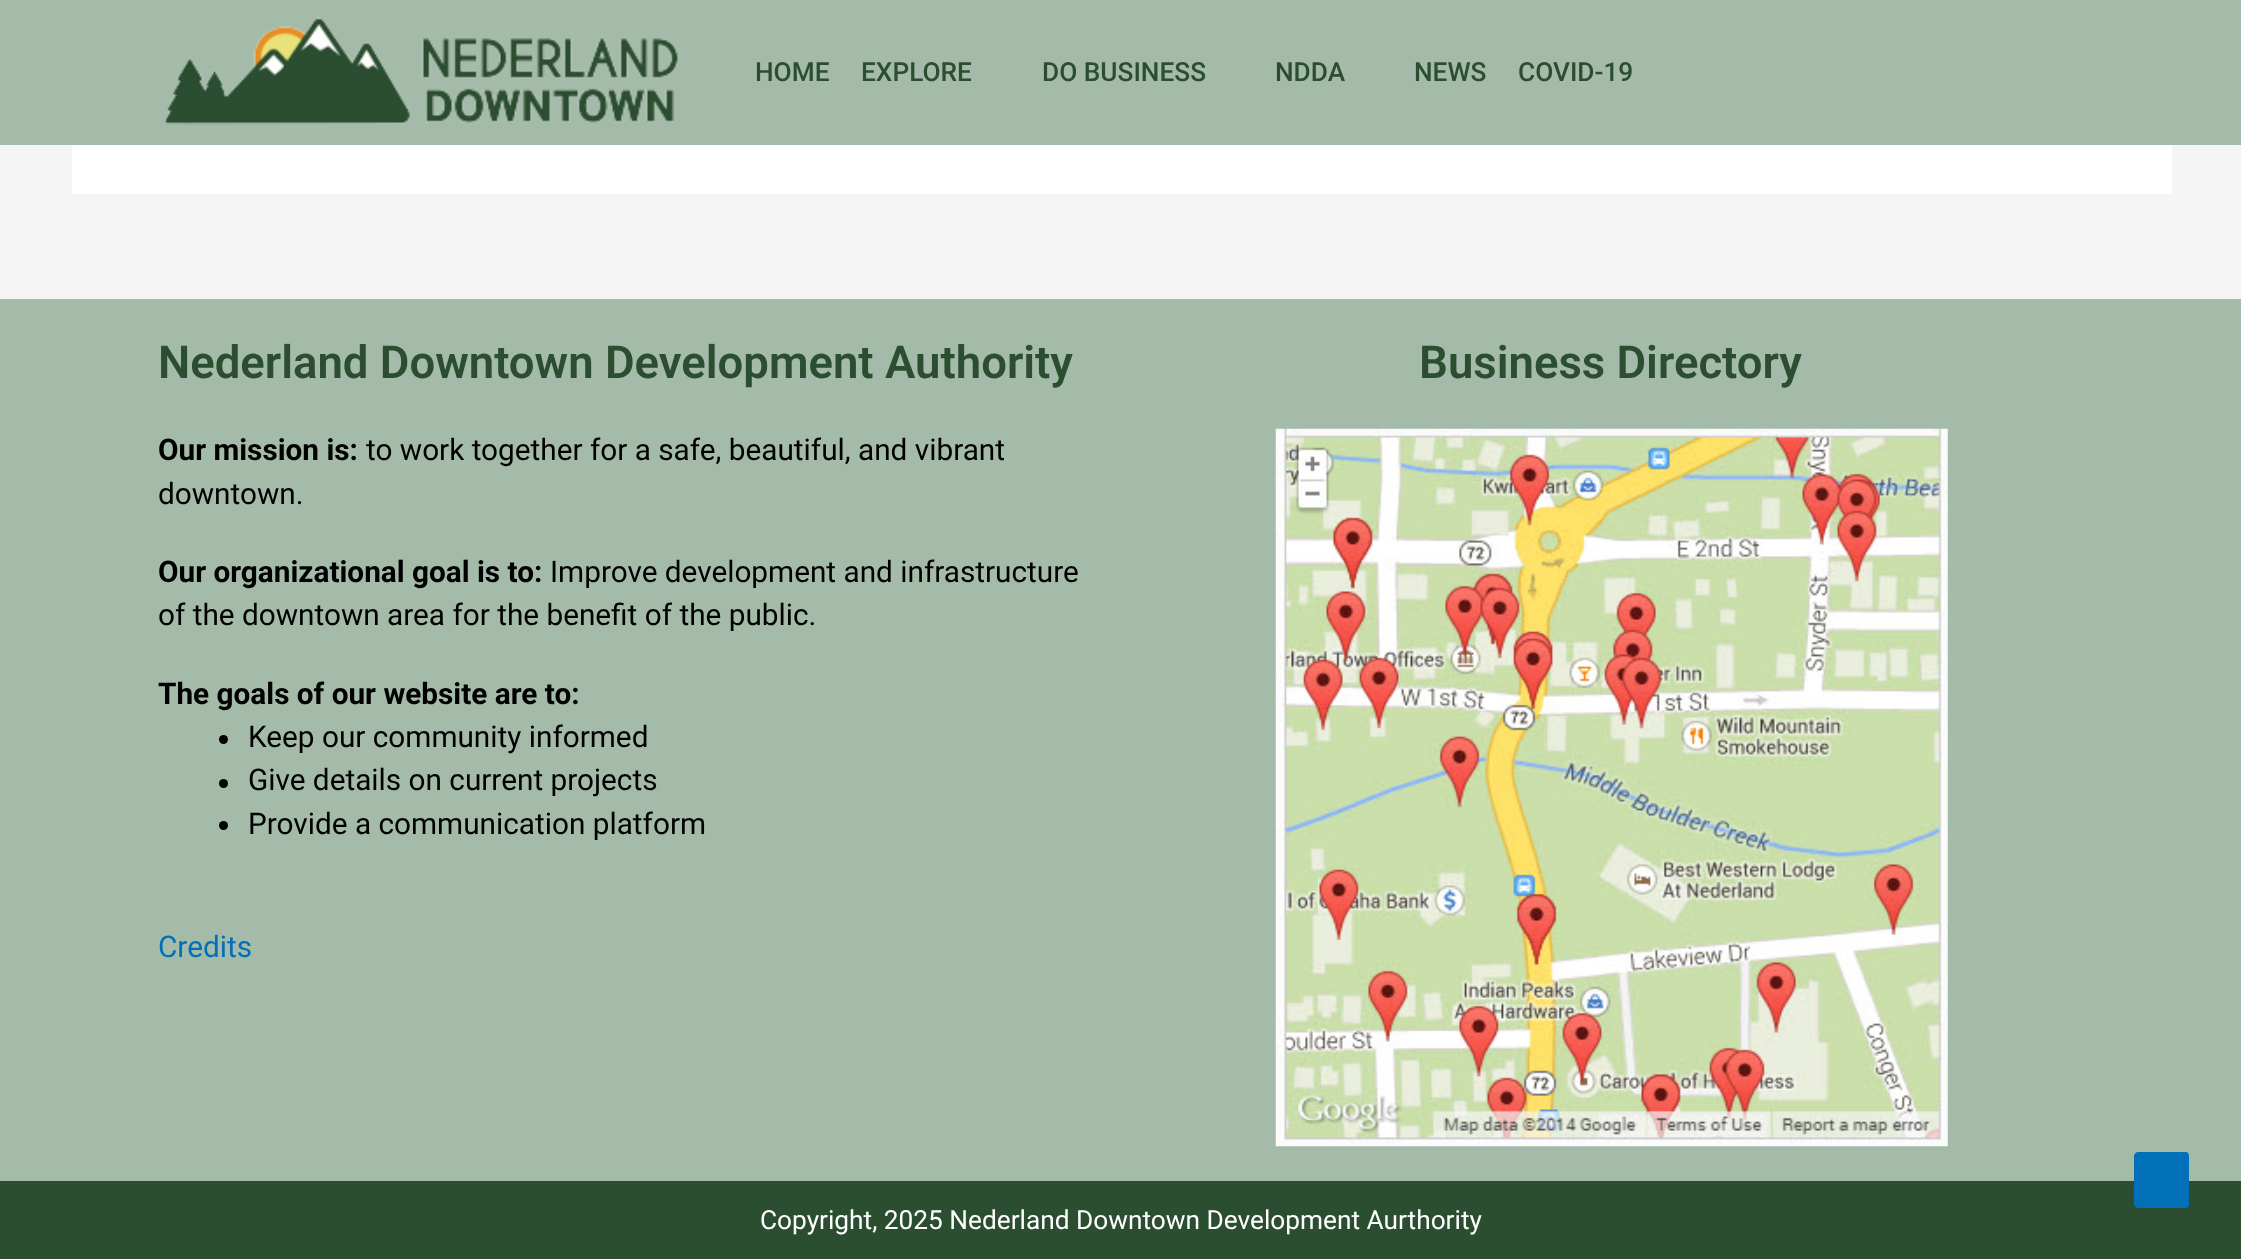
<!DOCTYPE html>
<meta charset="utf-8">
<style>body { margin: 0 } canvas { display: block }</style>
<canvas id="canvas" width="2241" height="1259"></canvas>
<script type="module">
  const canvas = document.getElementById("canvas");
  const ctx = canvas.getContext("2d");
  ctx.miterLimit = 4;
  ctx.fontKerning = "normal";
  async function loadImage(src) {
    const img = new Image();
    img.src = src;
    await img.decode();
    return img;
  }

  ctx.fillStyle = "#f5f5f5";
  ctx.fillRect(0, 0, 2241, 1259);
  ctx.fillStyle = "#a5bbaa";
  ctx.fillRect(0, 0, 2241, 145);
  ctx.drawImage(await loadImage("img1.png"), 164, 17, 514, 108);
  ctx.font = "500 26.25px Roboto";
  ctx.fillStyle = "#2b4d30";
  ctx.fillText("HOME", 755, 81);
  ctx.fillText("EXPLORE", 861, 81);
  ctx.fillText("DO BUSINESS", 1042, 81);
  ctx.fillText("NDDA", 1275, 81);
  ctx.fillText("NEWS", 1414, 81);
  ctx.fillText("COVID-19", 1518, 81);
  ctx.fillStyle = "#ffffff";
  ctx.fillRect(72, 145, 2100, 49);
  ctx.fillStyle = "#a5bbaa";
  ctx.fillRect(0, 299, 2241, 882);
  ctx.font = "600 45.5px Roboto";
  ctx.fillStyle = "#2b4d30";
  ctx.fillText("Nederland Downtown Development Authority", 158, 378);
  ctx.font = "bold 29.75px Roboto";
  ctx.fillStyle = "#000000";
  ctx.fillText("Our mission is:", 158, 460);
  ctx.font = "29.75px Roboto";
  ctx.fillText("to work together for a safe, beautiful, and vibrant", 366, 460);
  ctx.fillText("downtown.", 158, 504);
  ctx.font = "bold 29.75px Roboto";
  ctx.fillText("Our organizational goal is to:", 158, 582);
  ctx.font = "29.75px Roboto";
  ctx.fillText("Improve development and infrastructure", 550, 582);
  ctx.fillText("of the downtown area for the benefit of the public.", 158, 625);
  ctx.font = "bold 29.75px Roboto";
  ctx.fillText("The goals of our website are to:", 158, 704);
  ctx.beginPath();
  ctx.arc(223.5, 739.5, 4.5, 0, Math.PI * 2);
  ctx.fill();
  ctx.font = "29.75px Roboto";
  ctx.fillText("Keep our community informed", 248, 747);
  ctx.beginPath();
  ctx.arc(223.5, 783.5, 4.5, 0, Math.PI * 2);
  ctx.fill();
  ctx.fillText("Give details on current projects", 248, 790);
  ctx.beginPath();
  ctx.arc(223.5, 825.5, 4.5, 0, Math.PI * 2);
  ctx.fill();
  ctx.fillText("Provide a communication platform", 248, 834);
  ctx.fillStyle = "#0170b9";
  ctx.fillText("Credits", 158, 957);
  ctx.font = "600 45.5px Roboto";
  ctx.fillStyle = "#2b4d30";
  ctx.fillText("Business Directory", 1419, 378);
  ctx.drawImage(await loadImage("img2.png"), 1275, 428, 673, 719);
  ctx.fillRect(0, 1181, 2241, 78);
  ctx.font = "26.25px Roboto";
  ctx.fillStyle = "#ffffff";
  ctx.fillText("Copyright, 2025 Nederland Downtown Development Aurthority", 760, 1229);
  ctx.fillStyle = "#0170b9";
  ctx.beginPath();
  ctx.moveTo(2186, 1208);
  ctx.lineTo(2138, 1208);
  ctx.bezierCurveTo(2136, 1208, 2134, 1206, 2134, 1204);
  ctx.lineTo(2134, 1156);
  ctx.bezierCurveTo(2134, 1154, 2136, 1152, 2138, 1152);
  ctx.lineTo(2186, 1152);
  ctx.bezierCurveTo(2188, 1152, 2189, 1154, 2189, 1156);
  ctx.lineTo(2189, 1204);
  ctx.bezierCurveTo(2189, 1206, 2188, 1208, 2186, 1208);
  ctx.closePath();
  ctx.fill();
</script>
